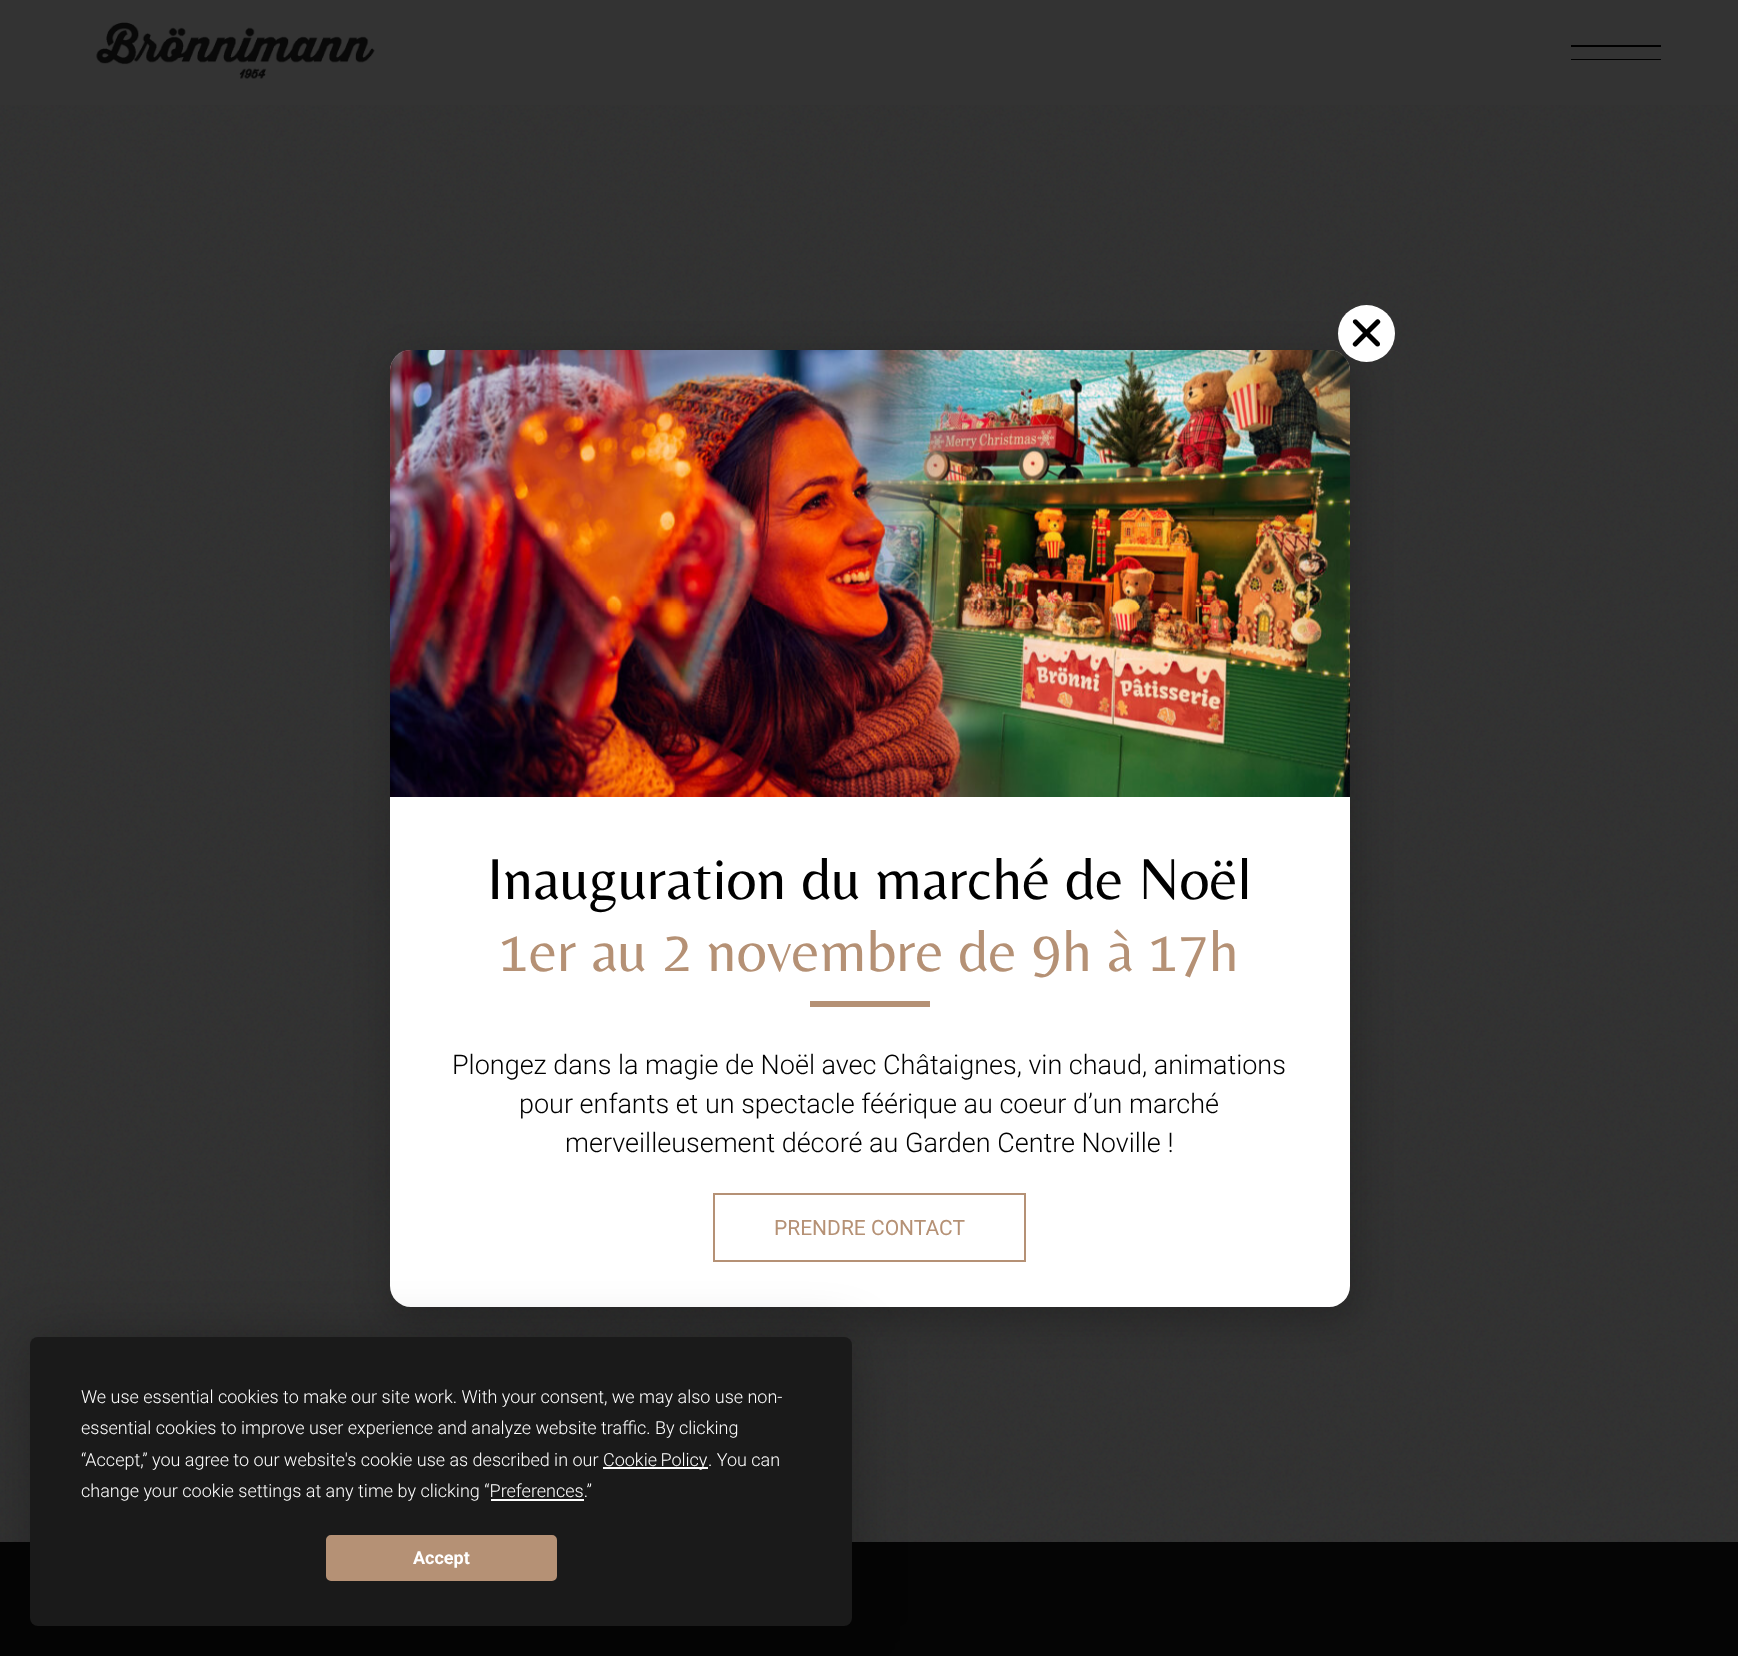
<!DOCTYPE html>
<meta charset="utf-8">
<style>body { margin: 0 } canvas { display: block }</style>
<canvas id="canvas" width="1738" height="1656"></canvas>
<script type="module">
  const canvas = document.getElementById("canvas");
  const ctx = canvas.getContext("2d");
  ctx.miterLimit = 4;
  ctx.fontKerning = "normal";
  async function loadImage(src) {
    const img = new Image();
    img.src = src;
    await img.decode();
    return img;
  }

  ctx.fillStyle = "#ffffff";
  ctx.fillRect(0, 0, 1738, 1656);
  ctx.drawImage(await loadImage("img1.png"), 0, 105, 1738, 1437);
  ctx.fillStyle = "#333333";
  ctx.fillRect(0, 0, 1738, 105);
  ctx.drawImage(await loadImage("img2.png"), 96, 22, 279, 57);
  ctx.fillStyle = "#000000";
  ctx.fillRect(1571, 45, 90, 2);
  ctx.fillRect(1571, 59, 90, 1);
  ctx.fillStyle = "#050505";
  ctx.fillRect(0, 1542, 1738, 114);
  ctx.fillStyle = "rgba(0, 0, 0, 0.2)";
  ctx.filter = "blur(17px)";
  ctx.beginPath();
  ctx.roundRect(389, 357, 969, 966, 26);
  ctx.fill();
  ctx.filter = "none";
  ctx.fillStyle = "#ffffff";
  ctx.beginPath();
  ctx.roundRect(390, 350, 960, 957, 21);
  ctx.fill();
  ctx.drawImage(await loadImage("img4.png"), 390, 350, 960, 447);
  ctx.beginPath();
  ctx.arc(1366.5, 333.5, 28.5, 0, Math.PI * 2);
  ctx.fill();
  ctx.drawImage(await loadImage("img3.png"), 1352, 319, 29, 28);
  ctx.font = "60px Belleza";
  ctx.fillStyle = "#000000";
  ctx.fillText("Inauguration du marché de Noël", 487, 899);
  ctx.fillStyle = "#b59175";
  ctx.fillText("1er au 2 novembre de 9h à 17h", 499, 971);
  ctx.fillRect(810, 1001, 120, 6);
  ctx.font = "300 27px Roboto";
  ctx.fillStyle = "#000000";
  ctx.fillText("Plongez dans la magie de Noël avec Châtaignes, vin chaud, animations", 452, 1074);
  ctx.fillText("pour enfants et un spectacle féérique au coeur d’un marché", 519, 1113);
  ctx.fillText("merveilleusement décoré au Garden Centre Noville !", 565, 1152);
  ctx.strokeStyle = "#b59175";
  ctx.lineWidth = 2;
  ctx.strokeRect(714, 1194, 311, 67);
  ctx.font = "21px Roboto";
  ctx.fillStyle = "#b59175";
  ctx.fillText("PRENDRE CONTACT", 774, 1235);
  ctx.fillStyle = "rgba(0, 0, 0, 0.25)";
  ctx.filter = "blur(26px)";
  ctx.beginPath();
  ctx.roundRect(30, 1337, 822, 289, 8);
  ctx.fill();
  ctx.filter = "none";
  ctx.fillStyle = "#1a1a1a";
  ctx.beginPath();
  ctx.roundRect(30, 1337, 822, 289, 8);
  ctx.fill();
  ctx.font = "300 18px Roboto";
  ctx.fillStyle = "#ffffff";
  ctx.fillText("We use essential cookies to make our site work. With your consent, we may also use non-", 81, 1403);
  ctx.fillText("essential cookies to improve user experience and analyze website traffic. By clicking", 81, 1434);
  ctx.fillText("“Accept,” you agree to our website's cookie use as described in our", 81, 1466);
  ctx.fillRect(603, 1467, 105, 2);
  ctx.wordSpacing = "-1px";
  ctx.fillText("Cookie Policy", 603, 1466);
  ctx.wordSpacing = "0px";
  ctx.fillText(". You can", 708, 1466);
  ctx.fillText("change your cookie settings at any time by clicking “Preferences.”", 81, 1497);
  ctx.fillRect(491, 1499, 93, 2);
  ctx.fillStyle = "#b59175";
  ctx.beginPath();
  ctx.roundRect(327, 1536, 229, 44, 4);
  ctx.fill();
  ctx.stroke();
  ctx.font = "bold 18px Roboto";
  ctx.fillStyle = "#ffffff";
  ctx.fillText("Accept", 413, 1564);
</script>
